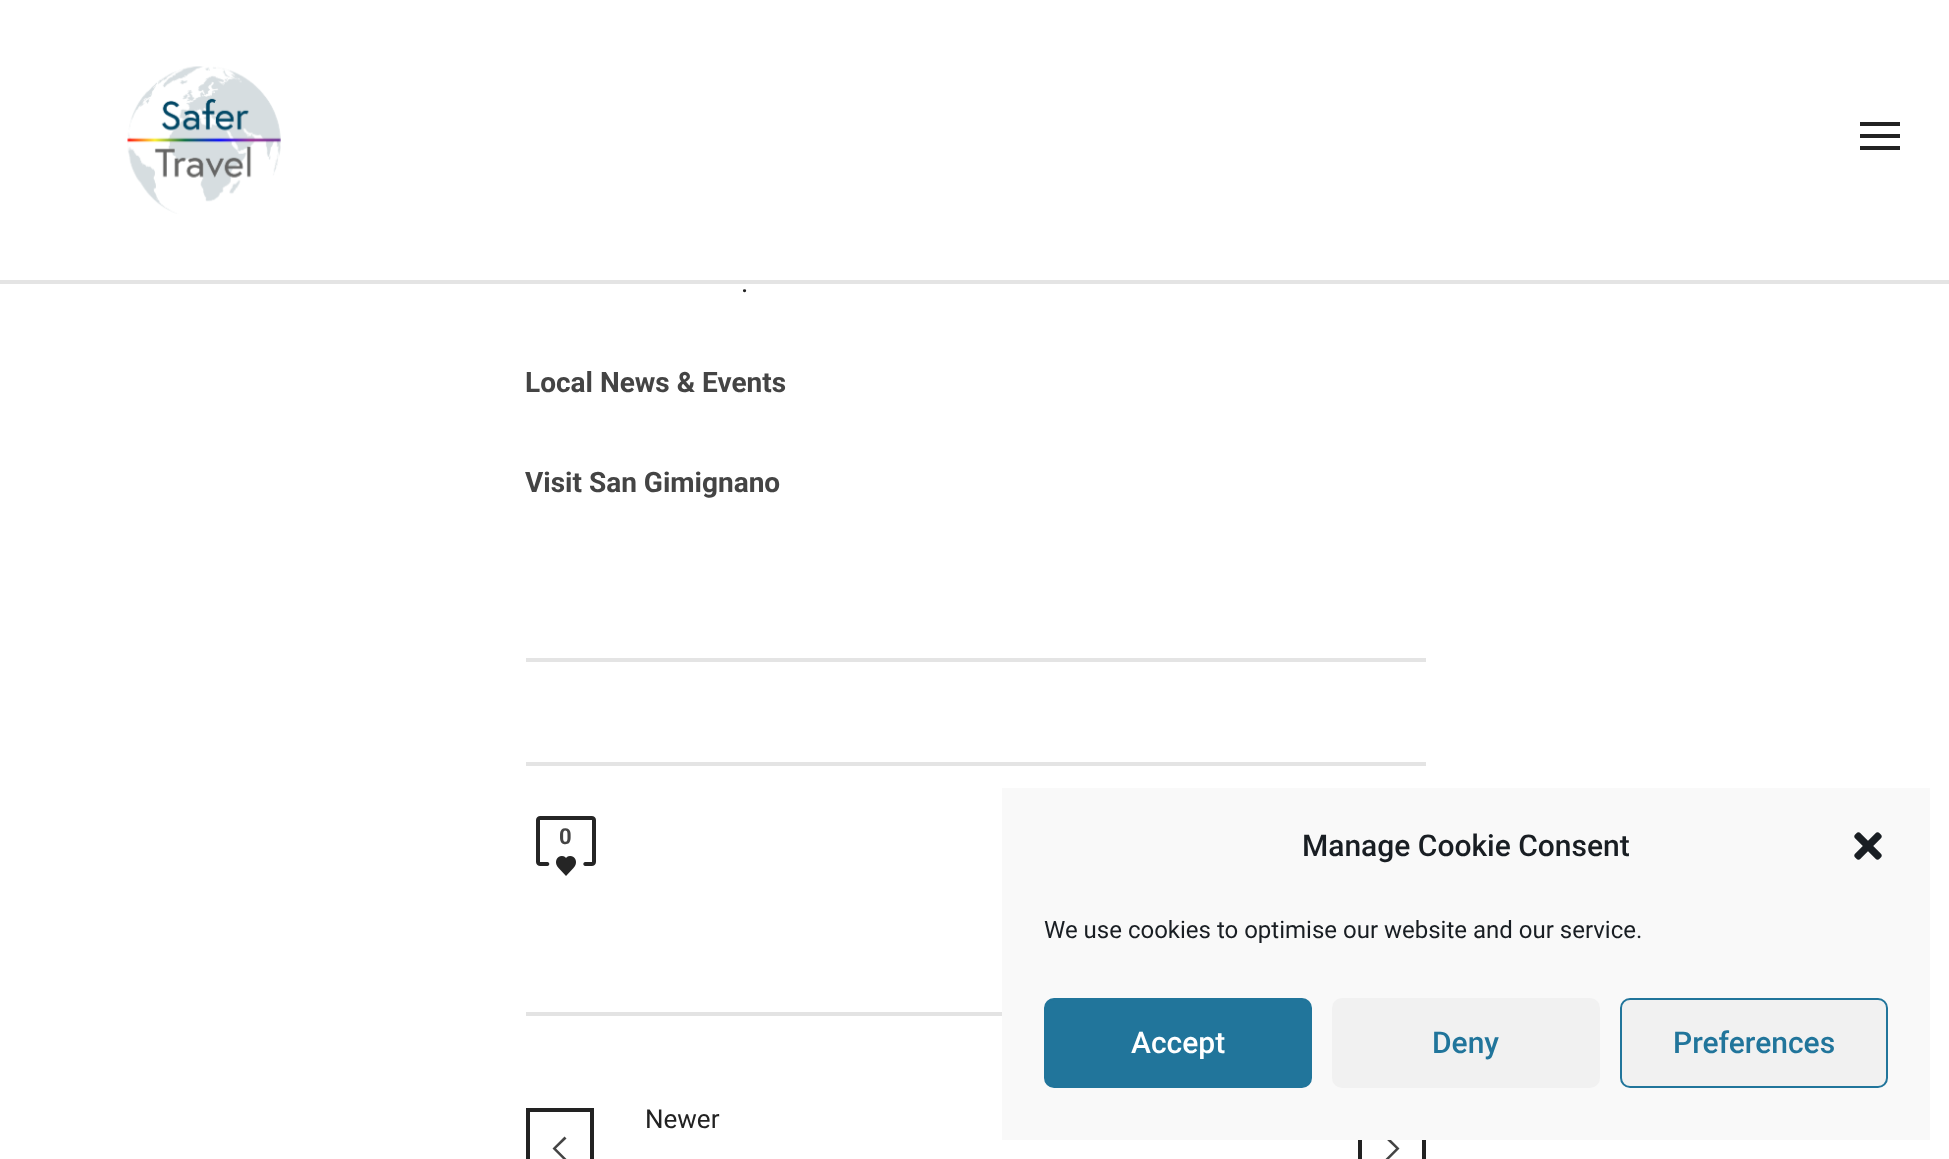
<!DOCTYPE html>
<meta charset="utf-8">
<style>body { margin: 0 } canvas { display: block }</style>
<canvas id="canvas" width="1949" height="1159"></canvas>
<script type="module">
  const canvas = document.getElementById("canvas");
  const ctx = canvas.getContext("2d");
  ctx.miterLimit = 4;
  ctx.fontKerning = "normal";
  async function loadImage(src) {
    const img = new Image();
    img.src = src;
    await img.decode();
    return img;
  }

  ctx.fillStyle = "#ffffff";
  ctx.fillRect(0, 0, 1949, 1159);
  ctx.fillStyle = "#e4e4e4";
  ctx.fillRect(0, 280, 1949, 4);
  ctx.drawImage(await loadImage("img1.png"), 127, 66, 154, 148);
  ctx.fillStyle = "#222222";
  ctx.fillRect(1860, 134, 40, 4);
  ctx.fillRect(1860, 122, 40, 4);
  ctx.fillRect(1860, 146, 40, 4);
  ctx.font = "28px Roboto";
  ctx.fillText(".", 741, 292);
  ctx.font = "bold 28px Roboto";
  ctx.fillStyle = "#444444";
  ctx.fillText("Local News & Events", 525, 392);
  ctx.fillText("Visit San Gimignano", 525, 492);
  ctx.fillStyle = "#e4e4e4";
  ctx.fillRect(526, 658, 900, 4);
  ctx.fillRect(526, 762, 900, 4);
  ctx.drawImage(await loadImage("img2.png"), 536, 816, 60, 60);
  ctx.font = "bold 22px Roboto";
  ctx.fillStyle = "#444444";
  ctx.fillText("0", 559, 844);
  ctx.fillStyle = "#e3e3e3";
  ctx.fillRect(526, 1012, 476, 4);
  ctx.strokeStyle = "#222222";
  ctx.lineWidth = 4;
  ctx.strokeRect(528, 1110, 64, 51);
  ctx.fillStyle = "#444444";
  ctx.beginPath();
  ctx.moveTo(564.5, 1136.5);
  ctx.lineTo(566.5, 1138.5);
  ctx.lineTo(556, 1148.5);
  ctx.lineTo(566.5, 1159);
  ctx.lineTo(564.5, 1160.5);
  ctx.lineTo(552.5, 1148.5);
  ctx.closePath();
  ctx.fill();
  ctx.font = "26px Roboto";
  ctx.fillStyle = "#222222";
  ctx.fillText("Newer", 645, 1128);
  ctx.strokeRect(1360, 1110, 64, 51);
  ctx.fillStyle = "#444444";
  ctx.beginPath();
  ctx.moveTo(1387.5, 1136.5);
  ctx.lineTo(1385.5, 1138.5);
  ctx.lineTo(1396, 1148.5);
  ctx.lineTo(1385.5, 1159);
  ctx.lineTo(1387.5, 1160.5);
  ctx.lineTo(1399.5, 1148.5);
  ctx.closePath();
  ctx.fill();
  ctx.fillStyle = "#f9f9f9";
  ctx.fillRect(1002, 788, 928, 352);
  ctx.font = "500 30px Roboto";
  ctx.fillStyle = "#191e23";
  ctx.fillText("Manage Cookie Consent", 1302, 856);
  ctx.drawImage(await loadImage("img3.png"), 1854, 832, 28, 28);
  ctx.font = "24px Roboto";
  ctx.fillText("We use cookies to optimise our website and our service.", 1044, 938);
  ctx.fillStyle = "#21759b";
  ctx.beginPath();
  ctx.roundRect(1045, 999, 266, 88, 9);
  ctx.fill();
  ctx.strokeStyle = "#21759b";
  ctx.lineWidth = 2;
  ctx.stroke();
  ctx.font = "500 30px Roboto";
  ctx.fillStyle = "#ffffff";
  ctx.fillText("Accept", 1131, 1053);
  ctx.fillStyle = "#f1f1f1";
  ctx.beginPath();
  ctx.roundRect(1332, 998, 268, 90, 10);
  ctx.fill();
  ctx.fillStyle = "#21759b";
  ctx.fillText("Deny", 1432, 1053);
  ctx.fillStyle = "#f1f1f1";
  ctx.beginPath();
  ctx.roundRect(1621, 999, 266, 88, 9);
  ctx.fill();
  ctx.stroke();
  ctx.fillStyle = "#21759b";
  ctx.fillText("Preferences", 1673, 1053);
</script>
